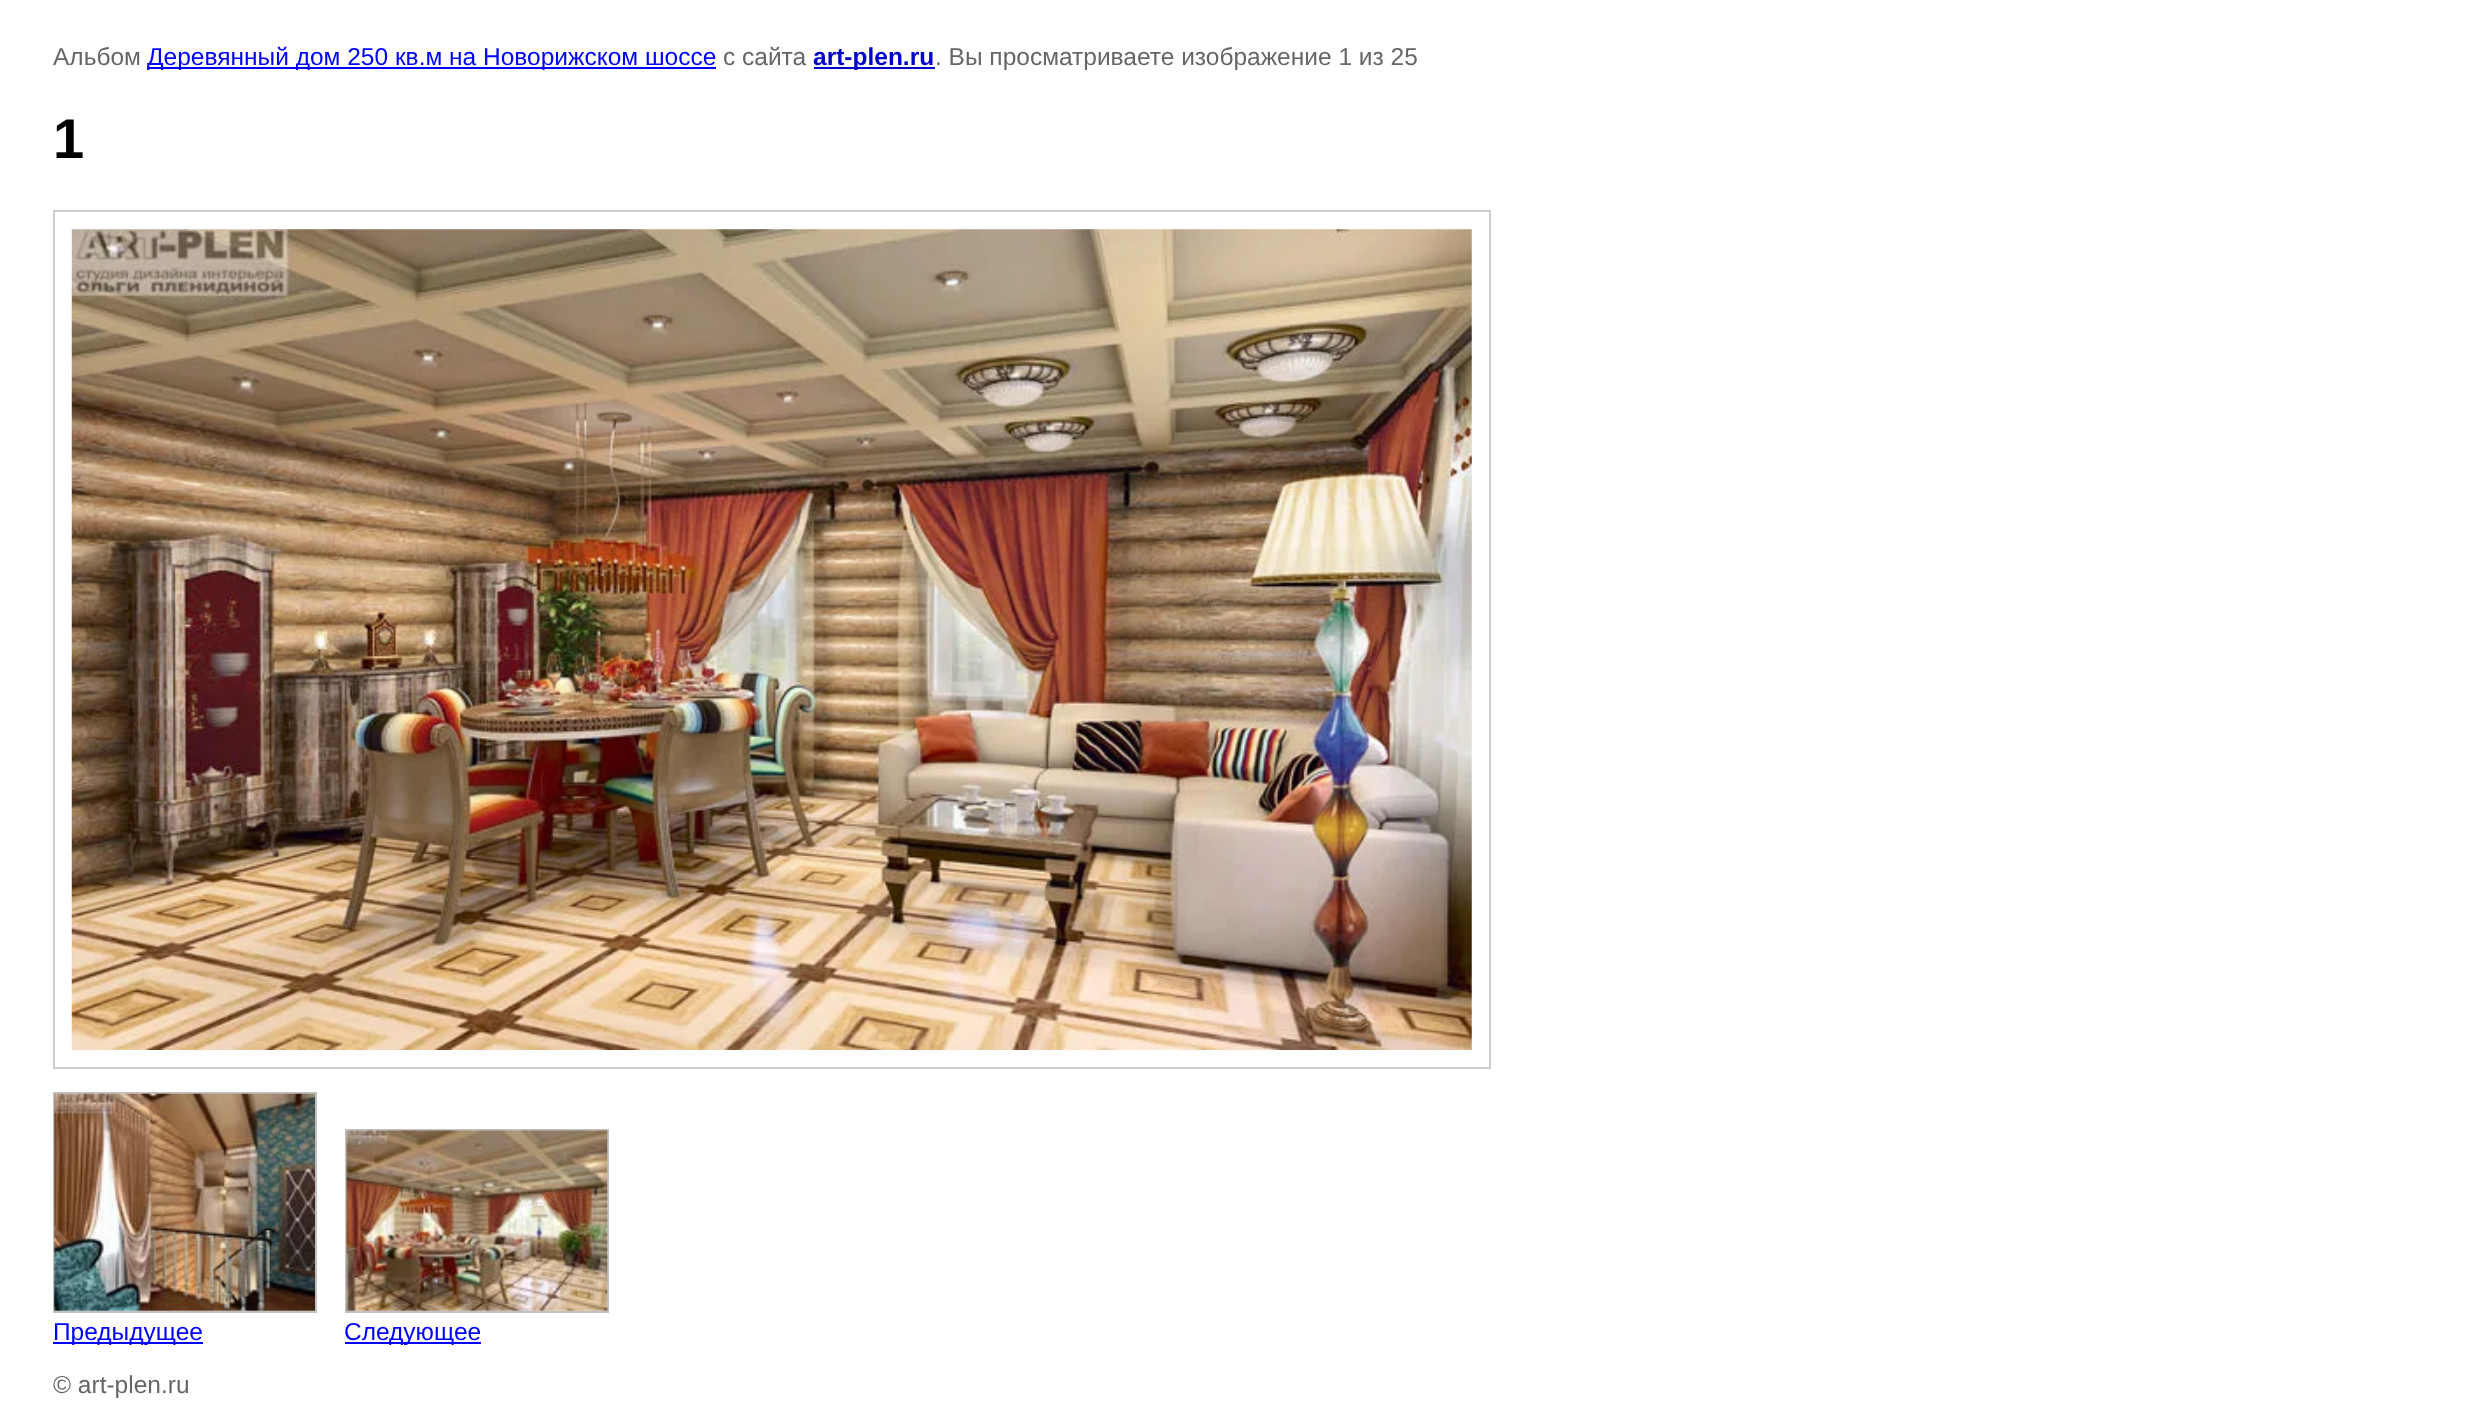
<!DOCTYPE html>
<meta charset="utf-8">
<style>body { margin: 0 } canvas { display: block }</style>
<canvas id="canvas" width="2480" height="1411"></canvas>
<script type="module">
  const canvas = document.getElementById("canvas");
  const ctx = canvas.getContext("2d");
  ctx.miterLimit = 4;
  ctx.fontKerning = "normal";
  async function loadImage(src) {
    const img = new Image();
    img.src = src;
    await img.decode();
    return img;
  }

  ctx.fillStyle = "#ffffff";
  ctx.fillRect(0, 0, 2480, 1411);
  ctx.font = "24.5px Liberation Sans";
  ctx.fillStyle = "#666666";
  ctx.fillText("Альбом", 53, 65);
  ctx.fillStyle = "#0000ff";
  ctx.fillRect(147, 67, 569, 2);
  ctx.fillText("Деревянный дом 250 кв.м на Новорижском шоссе", 147, 65);
  ctx.fillStyle = "#666666";
  ctx.fillText("с сайта", 723, 65);
  ctx.fillStyle = "#0000cc";
  ctx.fillRect(814, 67, 121, 2);
  ctx.font = "bold 24.5px Liberation Sans";
  ctx.fillText("art-plen.ru", 813, 65);
  ctx.font = "24.5px Liberation Sans";
  ctx.fillStyle = "#666666";
  ctx.fillText(". Вы просматриваете изображение 1 из 25", 935, 65);
  ctx.font = "bold 56px Liberation Sans";
  ctx.fillStyle = "#000000";
  ctx.fillText("1", 53, 158);
  ctx.strokeStyle = "#cccccc";
  ctx.lineWidth = 2;
  ctx.strokeRect(54, 211, 1436, 857);
  ctx.drawImage(await loadImage("img1.png"), 71, 229, 1401, 821);
  ctx.strokeStyle = "#c0c0c0";
  ctx.strokeRect(54, 1093, 262, 219);
  ctx.drawImage(await loadImage("img2.png"), 54, 1093, 261, 218);
  ctx.fillStyle = "#0000ff";
  ctx.fillRect(53, 1342, 150, 2);
  ctx.font = "24.5px Liberation Sans";
  ctx.fillText("Предыдущее", 53, 1340);
  ctx.strokeRect(346, 1130, 262, 182);
  ctx.drawImage(await loadImage("img3.png"), 346, 1130, 262, 181);
  ctx.fillRect(345, 1342, 136, 2);
  ctx.fillText("Следующее", 344, 1340);
  ctx.fillStyle = "#666666";
  ctx.fillText("© art-plen.ru", 53, 1393);
</script>
